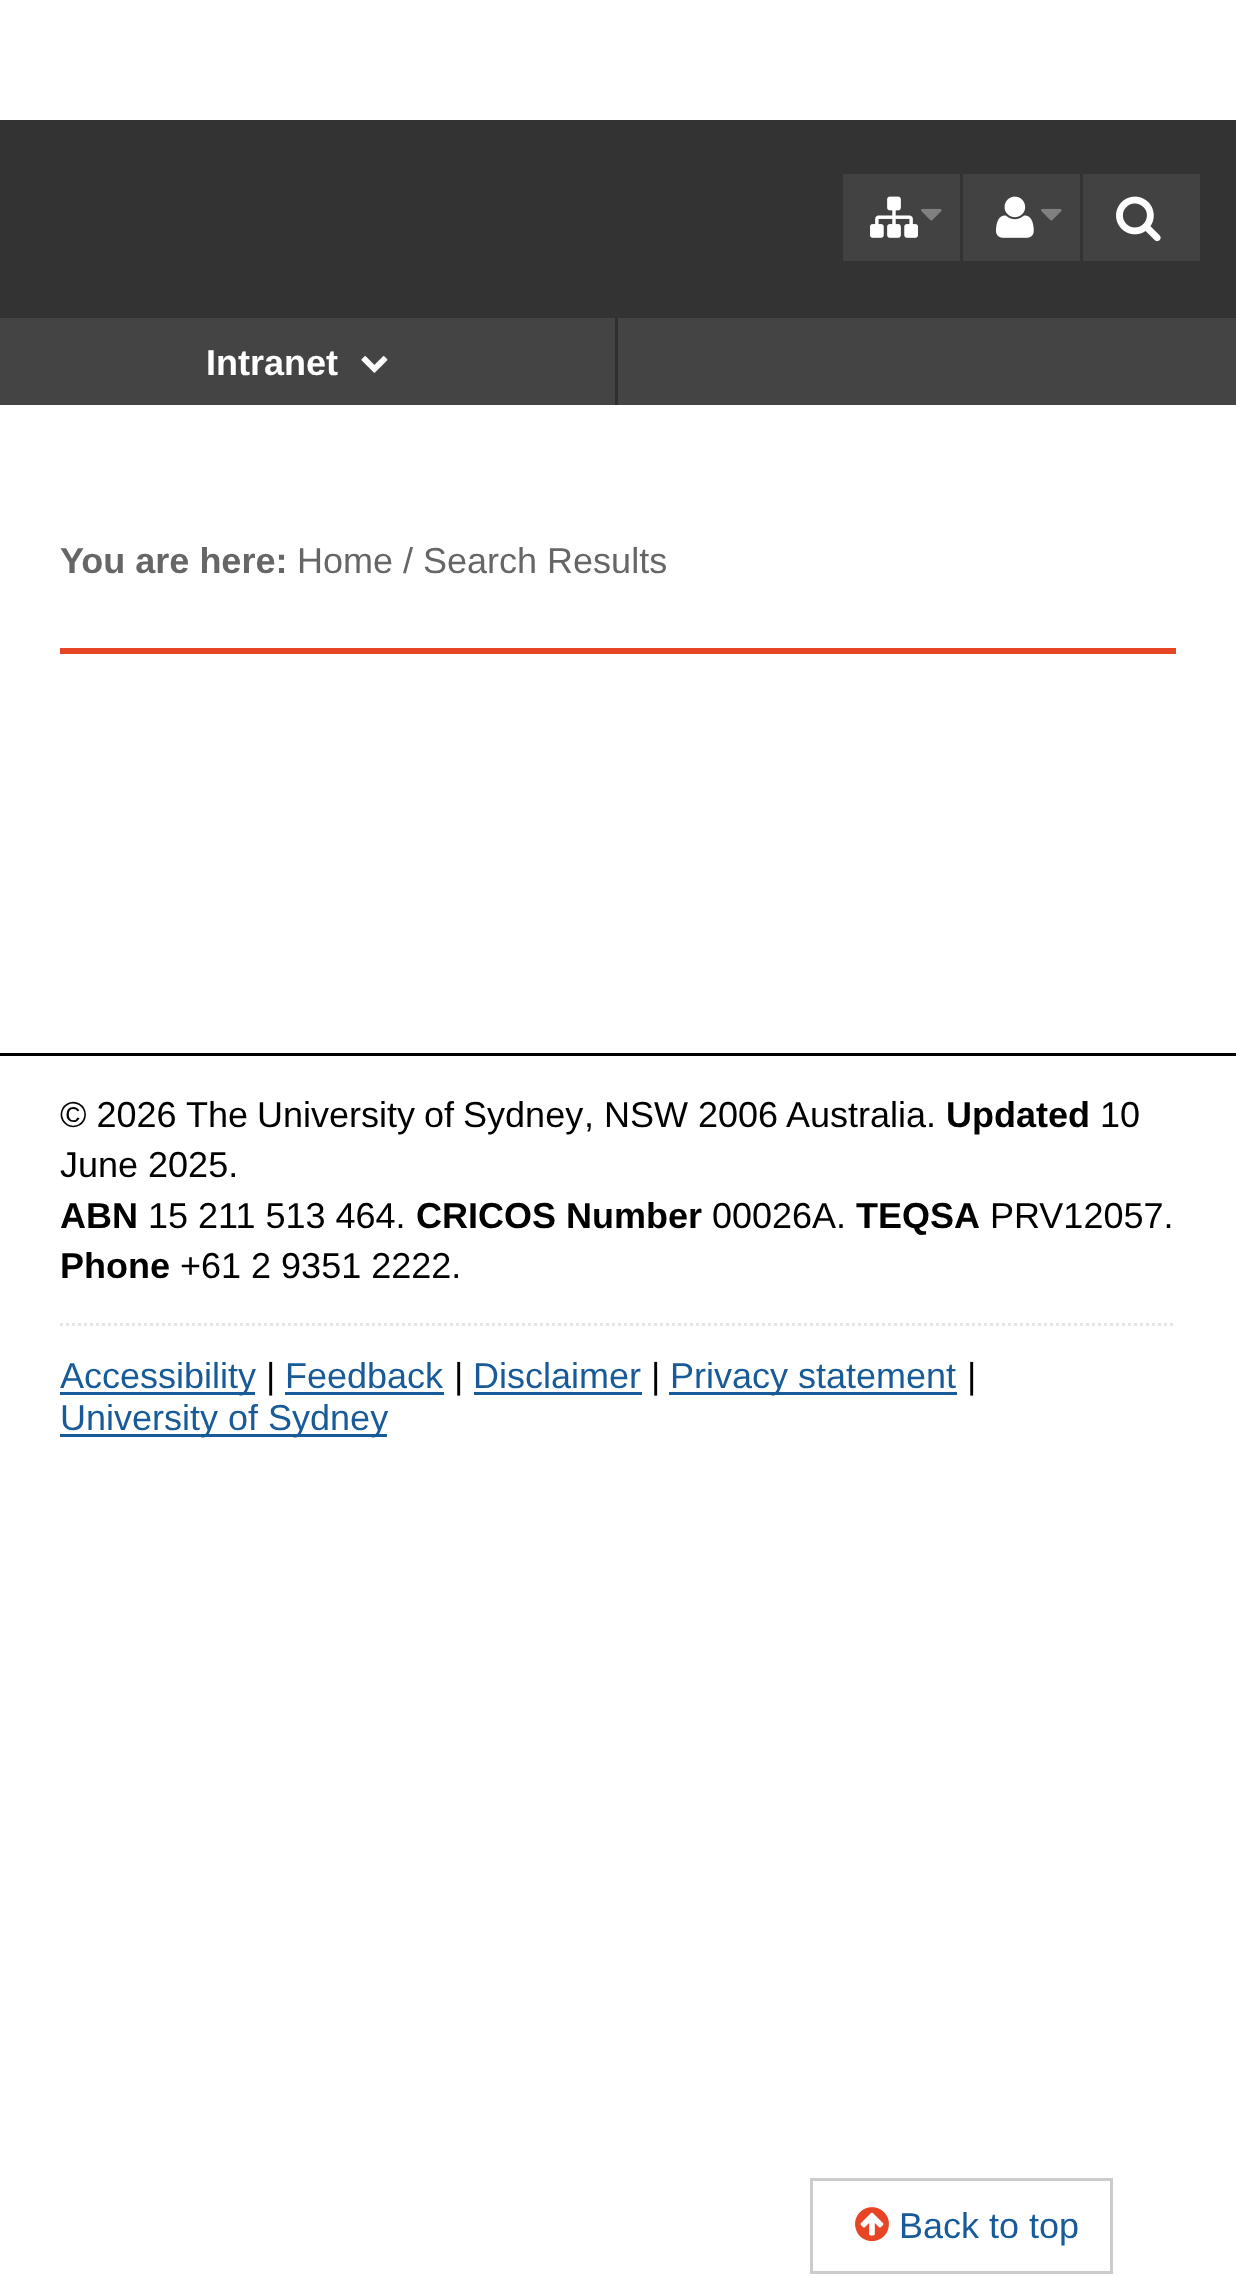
<!DOCTYPE html>
<meta charset="utf-8">
<style>body { margin: 0 } canvas { display: block }</style>
<canvas id="canvas" width="1236" height="2277"></canvas>
<script type="module">
  const canvas = document.getElementById("canvas");
  const ctx = canvas.getContext("2d");
  ctx.miterLimit = 4;
  ctx.fontKerning = "normal";
  async function loadImage(src) {
    const img = new Image();
    img.src = src;
    await img.decode();
    return img;
  }

  ctx.fillStyle = "#ffffff";
  ctx.fillRect(0, 0, 1236, 2277);
  ctx.fillStyle = "#333333";
  ctx.fillRect(0, 120, 1236, 198);
  ctx.fillStyle = "#424242";
  ctx.fillRect(843, 174, 117, 87);
  ctx.drawImage(await loadImage("img1.png"), 870, 196, 48, 42);
  ctx.drawImage(await loadImage("img2.png"), 921, 208, 21, 13);
  ctx.fillRect(963, 174, 117, 87);
  ctx.drawImage(await loadImage("img3.png"), 996, 196, 38, 42);
  ctx.drawImage(await loadImage("img2.png"), 1041, 208, 21, 13);
  ctx.fillRect(1083, 174, 117, 87);
  ctx.drawImage(await loadImage("img4.png"), 1116, 196, 45, 46);
  ctx.fillStyle = "#444444";
  ctx.fillRect(0, 318, 1236, 87);
  ctx.fillStyle = "#2f2f2f";
  ctx.fillRect(615, 318, 3, 87);
  ctx.font = "bold 36px Liberation Sans";
  ctx.fillStyle = "#ffffff";
  ctx.fillText("Intranet", 206, 375);
  ctx.drawImage(await loadImage("img5.png"), 361, 356, 27, 17);
  ctx.fillStyle = "#666666";
  ctx.fillText("You are here:", 60, 573);
  ctx.font = "36px Liberation Sans";
  ctx.fillText("Home / Search Results", 297, 573);
  ctx.fillStyle = "#000000";
  ctx.fillRect(0, 1053, 1236, 3);
  ctx.fillText("© 2026", 60, 1127);
  ctx.wordSpacing = "-1px";
  ctx.fillText("The University of Sydney", 186, 1127);
  ctx.wordSpacing = "0px";
  ctx.fillText(", NSW 2006", 584, 1127);
  ctx.fillText("Australia.", 786, 1127);
  ctx.font = "bold 36px Liberation Sans";
  ctx.fillText("Updated", 946, 1127);
  ctx.font = "36px Liberation Sans";
  ctx.fillText("10", 1100, 1127);
  ctx.fillText("June 2025.", 60, 1177);
  ctx.font = "bold 36px Liberation Sans";
  ctx.fillText("ABN", 60, 1228);
  ctx.font = "36px Liberation Sans";
  ctx.fillText("15 211 513 464.", 148, 1228);
  ctx.font = "bold 36px Liberation Sans";
  ctx.fillText("CRICOS Number", 416, 1228);
  ctx.font = "36px Liberation Sans";
  ctx.fillText("00026A.", 712, 1228);
  ctx.font = "bold 36px Liberation Sans";
  ctx.fillText("TEQSA", 856, 1228);
  ctx.font = "36px Liberation Sans";
  ctx.fillText("PRV12057.", 990, 1228);
  ctx.font = "bold 36px Liberation Sans";
  ctx.fillText("Phone", 60, 1278);
  ctx.font = "36px Liberation Sans";
  ctx.fillText("+61 2 9351 2222.", 180, 1278);
  ctx.beginPath();
  ctx.moveTo(60, 1324.5);
  ctx.lineTo(1176, 1324.5);
  ctx.strokeStyle = "#e6e6e6";
  ctx.lineWidth = 3;
  ctx.setLineDash([3, 3]);
  ctx.stroke();
  ctx.fillStyle = "#195b98";
  ctx.fillRect(60, 1392, 195, 3);
  ctx.fillText("Accessibility", 60, 1388);
  ctx.fillStyle = "#000000";
  ctx.fillText("|", 266, 1388);
  ctx.fillStyle = "#195b98";
  ctx.fillText("Feedback", 285, 1388);
  ctx.fillRect(285, 1392, 159, 3);
  ctx.fillStyle = "#000000";
  ctx.fillText("|", 454, 1388);
  ctx.fillStyle = "#195b98";
  ctx.fillText("Disclaimer", 473, 1388);
  ctx.fillRect(474, 1392, 168, 3);
  ctx.fillStyle = "#000000";
  ctx.fillText("|", 651, 1388);
  ctx.fillStyle = "#195b98";
  ctx.fillRect(669, 1392, 288, 3);
  ctx.fillText("Privacy statement", 670, 1388);
  ctx.fillStyle = "#000000";
  ctx.fillText("|", 967, 1388);
  ctx.fillStyle = "#195b98";
  ctx.fillRect(60, 1434, 327, 3);
  ctx.fillText("University of Sydney", 60, 1430);
  ctx.fillStyle = "#e64626";
  ctx.fillRect(60, 648, 1116, 6);
  ctx.strokeStyle = "#cccccc";
  ctx.setLineDash([]);
  ctx.strokeRect(811.5, 2179.5, 300, 93);
  ctx.drawImage(await loadImage("img6.png"), 855, 2207, 34, 35);
  ctx.fillStyle = "#195b98";
  ctx.fillText("Back to top", 899, 2238);
</script>
